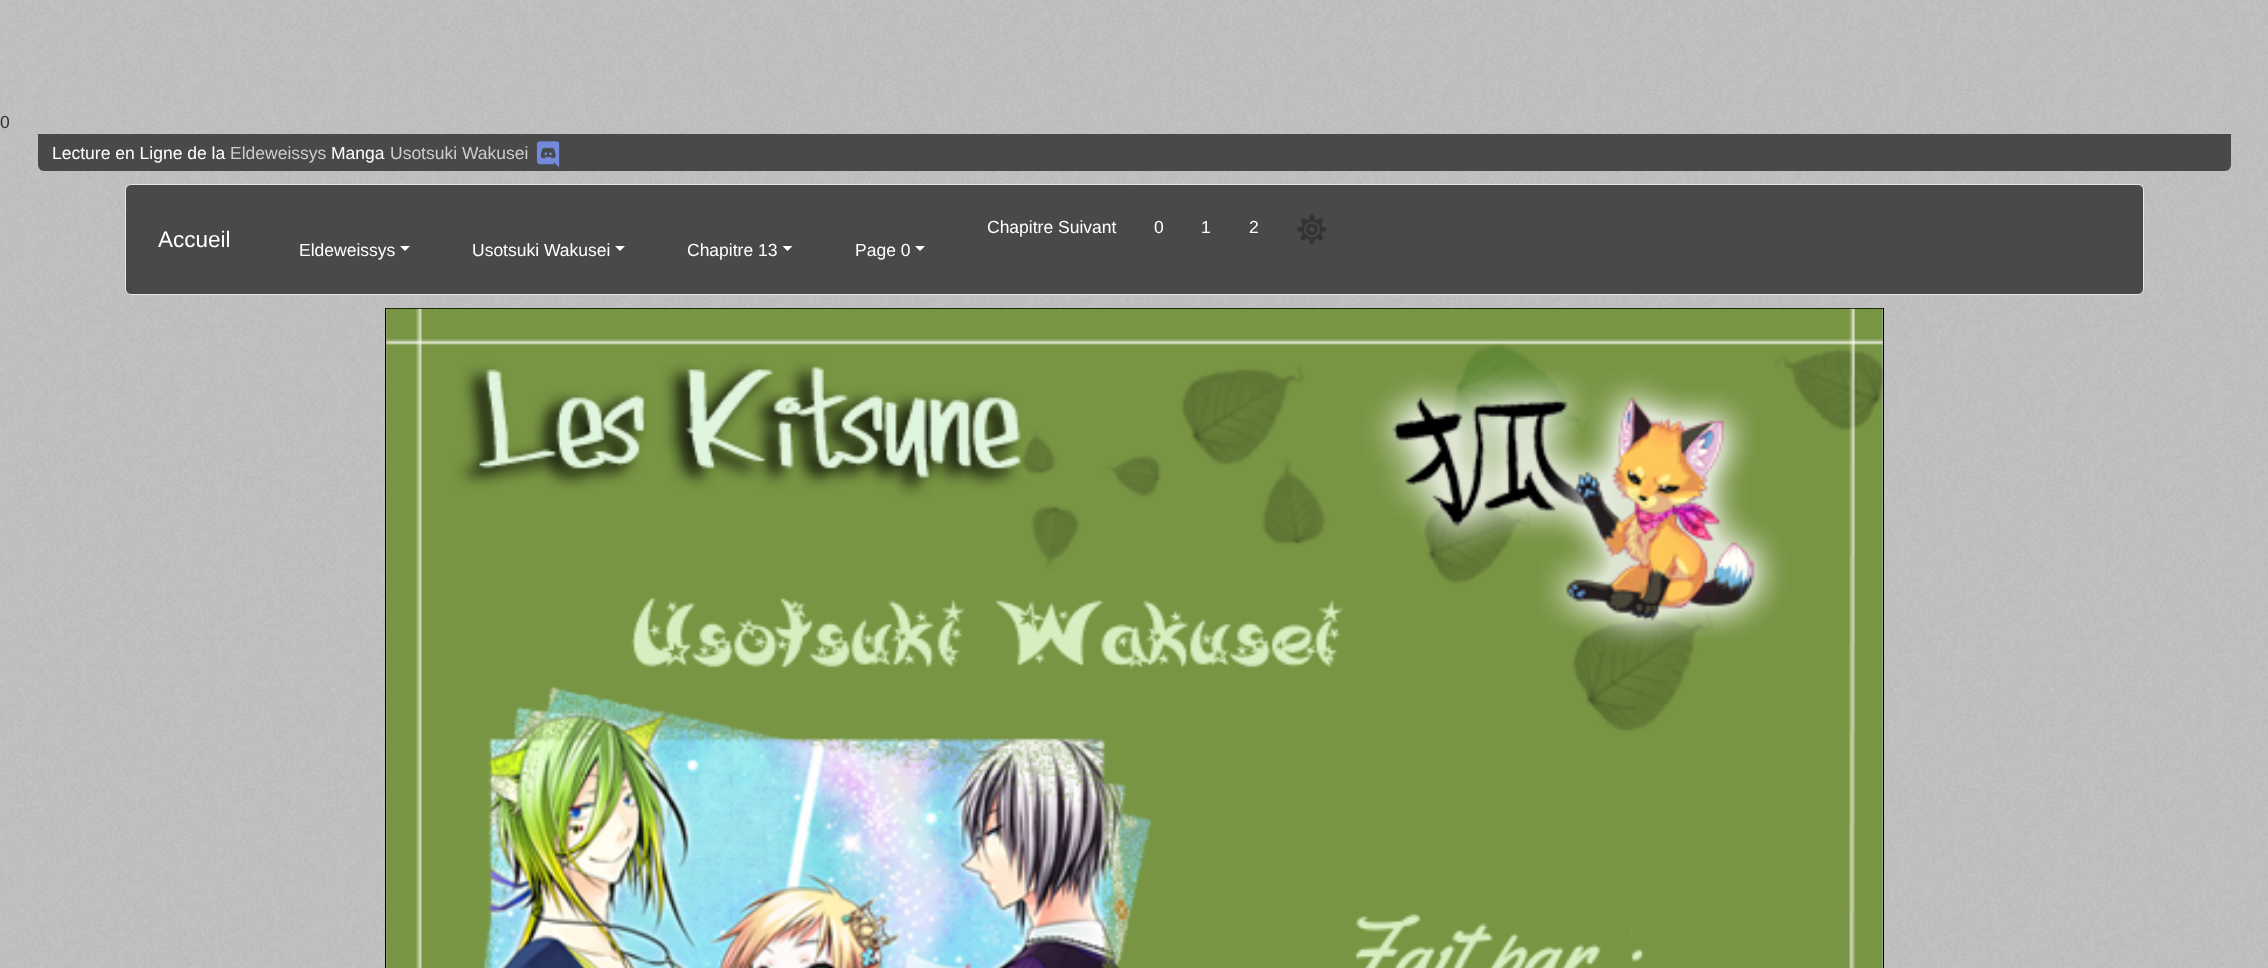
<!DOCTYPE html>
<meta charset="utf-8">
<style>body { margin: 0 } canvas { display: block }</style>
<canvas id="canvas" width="2268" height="968"></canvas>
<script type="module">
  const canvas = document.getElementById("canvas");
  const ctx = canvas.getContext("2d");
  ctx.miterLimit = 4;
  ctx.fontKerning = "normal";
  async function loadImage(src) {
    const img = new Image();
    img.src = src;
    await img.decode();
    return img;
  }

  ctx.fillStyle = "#ffffff";
  ctx.fillRect(0, 0, 2268, 968);
  ctx.drawImage(await loadImage("img1.png"), 0, 0, 2268, 968);
  ctx.font = "17.5px Liberation Sans";
  ctx.fillStyle = "#333333";
  ctx.fillText("0", 0, 128);
  ctx.fillStyle = "#494949";
  ctx.beginPath();
  ctx.roundRect(38, 134, 2193, 37, [0, 0, 6, 6]);
  ctx.fill();
  ctx.fillStyle = "#ffffff";
  ctx.fillText("Lecture en Ligne de la", 52, 159);
  ctx.fillStyle = "#cbcece";
  ctx.fillText("Eldeweissys", 230, 159);
  ctx.fillStyle = "#ffffff";
  ctx.fillText("Manga", 331, 159);
  ctx.fillStyle = "#cbcece";
  ctx.fillText("Usotsuki Wakusei", 390, 159);
  ctx.drawImage(await loadImage("img2.png"), 536, 141, 24, 27);
  ctx.fillStyle = "#494949";
  ctx.beginPath();
  ctx.roundRect(125.5, 184.5, 2018, 110, 5.5);
  ctx.fill();
  ctx.strokeStyle = "#e7e7e7";
  ctx.stroke();
  ctx.font = "22.5px Liberation Sans";
  ctx.fillStyle = "#ffffff";
  ctx.fillText("Accueil", 158, 247);
  ctx.font = "17.5px Liberation Sans";
  ctx.fillText("Chapitre Suivant", 987, 233);
  ctx.fillText("0", 1154, 233);
  ctx.fillText("1", 1201, 233);
  ctx.fillText("2", 1249, 233);
  ctx.drawImage(await loadImage("img3.png"), 1297, 214, 30, 30);
  ctx.fillText("Eldeweissys", 299, 256);
  ctx.beginPath();
  ctx.moveTo(400, 246);
  ctx.lineTo(410, 246);
  ctx.lineTo(405, 251);
  ctx.closePath();
  ctx.fill();
  ctx.fillText("Usotsuki Wakusei", 472, 256);
  ctx.beginPath();
  ctx.moveTo(615, 246);
  ctx.lineTo(625, 246);
  ctx.lineTo(620, 251);
  ctx.closePath();
  ctx.fill();
  ctx.fillText("Chapitre 13", 687, 256);
  ctx.beginPath();
  ctx.moveTo(782.5, 246);
  ctx.lineTo(792.5, 246);
  ctx.lineTo(787.5, 251);
  ctx.closePath();
  ctx.fill();
  ctx.fillText("Page 0", 855, 256);
  ctx.beginPath();
  ctx.moveTo(915, 246);
  ctx.lineTo(925, 246);
  ctx.lineTo(920, 251);
  ctx.closePath();
  ctx.fill();
  ctx.strokeStyle = "#000000";
  ctx.strokeRect(385.5, 308.5, 1498, 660);
  ctx.drawImage(await loadImage("img4.png"), 386, 308, 1497, 660);
</script>
